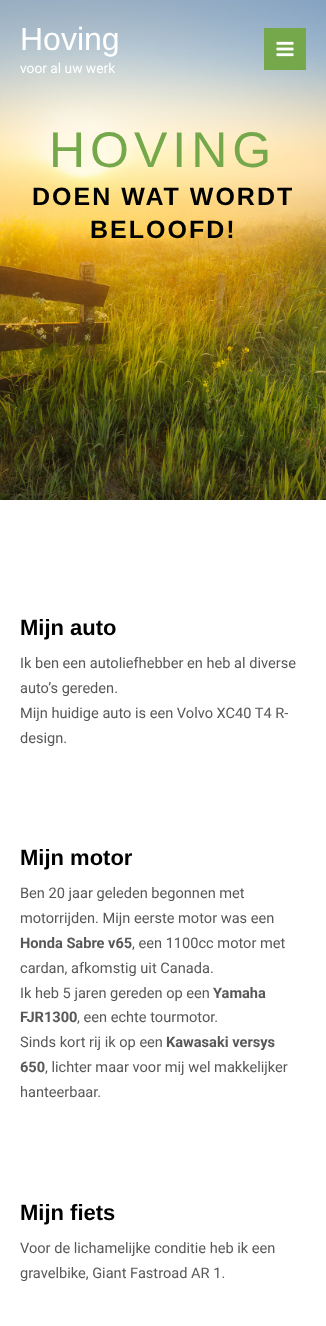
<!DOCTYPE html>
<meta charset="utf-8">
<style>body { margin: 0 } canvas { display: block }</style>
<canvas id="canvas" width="326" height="1326"></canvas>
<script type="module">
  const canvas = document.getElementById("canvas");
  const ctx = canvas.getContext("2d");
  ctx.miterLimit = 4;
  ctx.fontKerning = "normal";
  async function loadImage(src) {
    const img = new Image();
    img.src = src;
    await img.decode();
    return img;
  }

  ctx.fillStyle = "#ffffff";
  ctx.fillRect(0, 0, 326, 1326);
  ctx.drawImage(await loadImage("img2.png"), 0, 0, 326, 500);
  ctx.font = "32px Liberation Sans";
  ctx.fillText("Hoving", 20, 50);
  ctx.font = "13.75px Roboto";
  ctx.fillText("voor al uw werk", 20, 73);
  ctx.fillStyle = "#74a84a";
  ctx.fillRect(264, 28, 42, 42);
  ctx.drawImage(await loadImage("img1.png"), 276, 41, 18, 16);
  ctx.letterSpacing = "5px";
  ctx.font = "50px Liberation Sans";
  ctx.fillText("HOVING", 49, 167);
  ctx.letterSpacing = "2px";
  ctx.font = "bold 25px Liberation Sans";
  ctx.fillStyle = "#000000";
  ctx.fillText("DOEN WAT WORDT", 32, 205);
  ctx.fillText("BELOOFD!", 90, 238);
  ctx.letterSpacing = "0px";
  ctx.font = "bold 22px Liberation Sans";
  ctx.fillText("Mijn auto", 20, 635);
  ctx.font = "14.6px Roboto";
  ctx.fillStyle = "#585858";
  ctx.fillText("Ik ben een autoliefhebber en heb al diverse", 20, 668);
  ctx.fillText("auto’s gereden.", 20, 693);
  ctx.fillText("Mijn huidige auto is een Volvo XC40 T4 R-", 20, 718);
  ctx.fillText("design.", 20, 743);
  ctx.font = "bold 22px Liberation Sans";
  ctx.fillStyle = "#000000";
  ctx.fillText("Mijn motor", 20, 865);
  ctx.font = "14.6px Roboto";
  ctx.fillStyle = "#585858";
  ctx.fillText("Ben 20 jaar geleden begonnen met", 20, 898);
  ctx.fillText("motorrijden. Mijn eerste motor was een", 20, 923);
  ctx.font = "bold 14.6px Roboto";
  ctx.fillText("Honda Sabre v65", 20, 948);
  ctx.font = "14.6px Roboto";
  ctx.fillText(", een 1100cc motor met", 132, 948);
  ctx.fillText("cardan, afkomstig uit Canada.", 20, 973);
  ctx.fillText("Ik heb 5 jaren gereden op een", 20, 998);
  ctx.font = "bold 14.6px Roboto";
  ctx.fillText("Yamaha", 213, 998);
  ctx.fillText("FJR1300", 20, 1022);
  ctx.font = "14.6px Roboto";
  ctx.fillText(", een echte tourmotor.", 77, 1022);
  ctx.fillText("Sinds kort rij ik op een", 20, 1047);
  ctx.font = "bold 14.6px Roboto";
  ctx.fillText("Kawasaki versys", 166, 1047);
  ctx.fillText("650", 20, 1072);
  ctx.font = "14.6px Roboto";
  ctx.fillText(", lichter maar voor mij wel makkelijker", 45, 1072);
  ctx.fillText("hanteerbaar.", 20, 1097);
  ctx.font = "bold 22px Liberation Sans";
  ctx.fillStyle = "#000000";
  ctx.fillText("Mijn fiets", 20, 1220);
  ctx.font = "14.6px Roboto";
  ctx.fillStyle = "#585858";
  ctx.fillText("Voor de lichamelijke conditie heb ik een", 20, 1253);
  ctx.fillText("gravelbike, Giant Fastroad AR 1.", 20, 1278);
</script>
